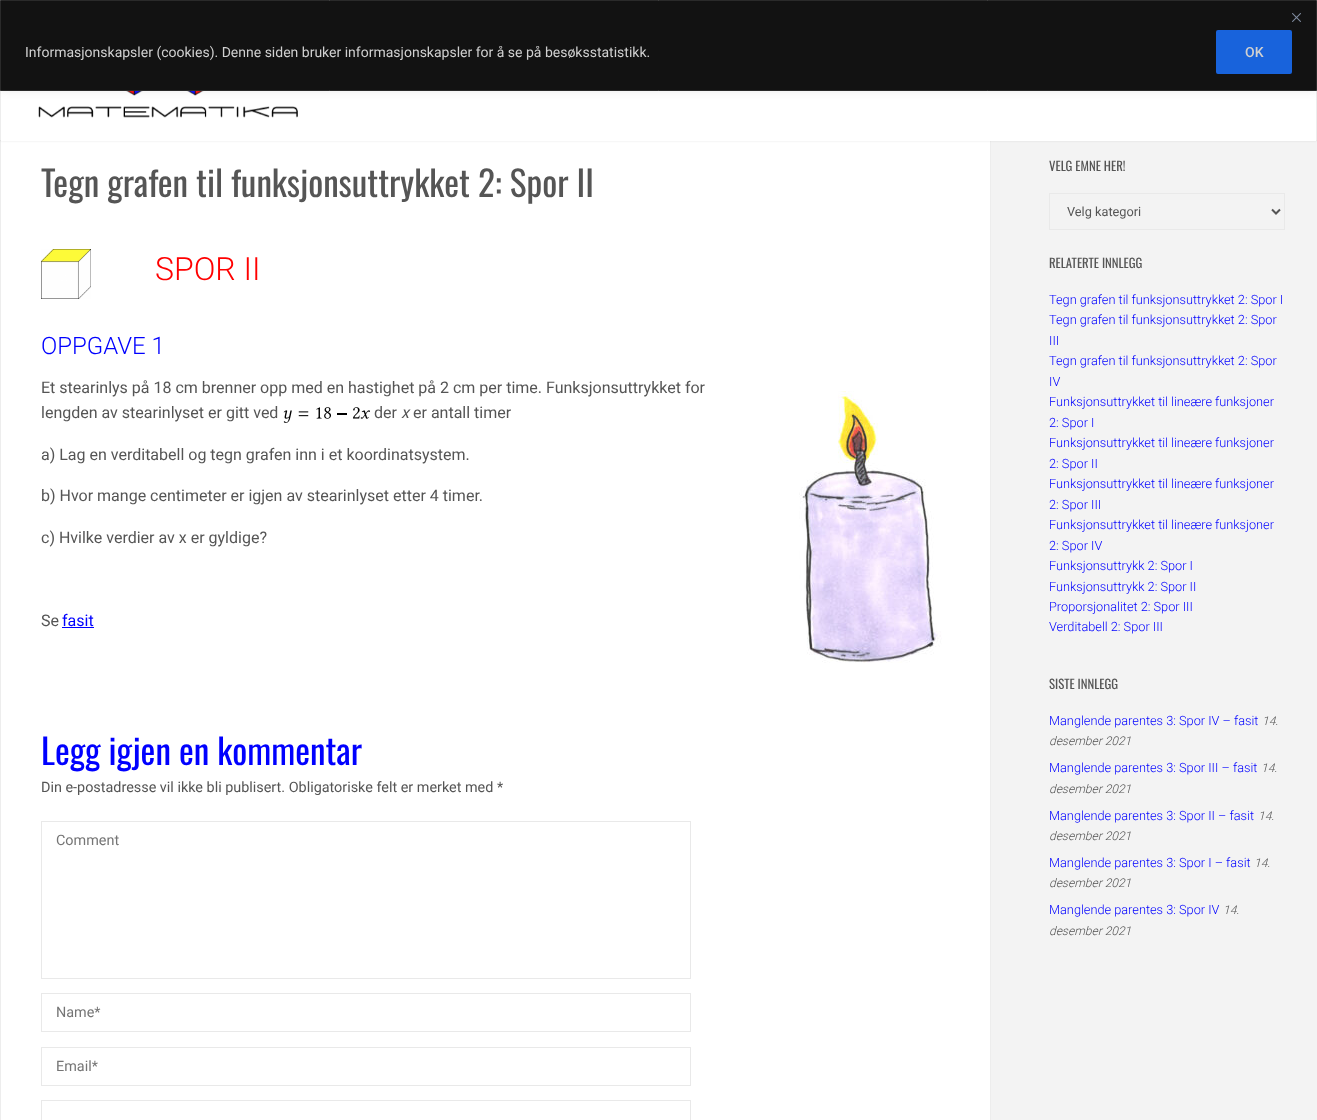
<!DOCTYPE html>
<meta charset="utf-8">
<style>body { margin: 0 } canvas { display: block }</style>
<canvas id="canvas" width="1317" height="1120"></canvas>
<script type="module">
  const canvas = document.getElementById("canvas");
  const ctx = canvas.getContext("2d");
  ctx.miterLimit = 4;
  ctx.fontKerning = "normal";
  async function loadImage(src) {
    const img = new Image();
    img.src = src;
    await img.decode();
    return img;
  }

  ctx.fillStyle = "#f3f3f3";
  ctx.fillRect(0, 0, 1317, 1120);
  ctx.fillStyle = "#ffffff";
  ctx.fillRect(1, 141, 989, 979);
  ctx.strokeStyle = "#ededed";
  ctx.strokeRect(0.5, 120.5, 990, 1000);
  ctx.fillStyle = "rgba(0, 0, 0, 0.2)";
  ctx.filter = "blur(1.5px)";
  ctx.beginPath();
  ctx.rect(0, 0, 1317, 140);
  ctx.fill();
  ctx.filter = "none";
  ctx.strokeRect(0.5, 0.5, 1316, 139);
  ctx.fillStyle = "#ffffff";
  ctx.fillRect(1, 91, 1315, 50);
  ctx.drawImage(await loadImage("img2.png"), 38, 91, 260, 27);
  ctx.fillStyle = "rgba(172, 171, 171, 0.3)";
  ctx.filter = "blur(5px)";
  ctx.beginPath();
  ctx.rect(0, -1, 1317, 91);
  ctx.fill();
  ctx.filter = "none";
  ctx.fillStyle = "#121212";
  ctx.beginPath();
  ctx.rect(0.5, 0.5, 1316, 90);
  ctx.fill();
  ctx.strokeStyle = "#2a2a2a";
  ctx.stroke();
  ctx.drawImage(await loadImage("img1.png"), 1292, 13, 9, 9);
  ctx.font = "14px Roboto";
  ctx.fillStyle = "#d0d0d0";
  ctx.fillText("Informasjonskapsler (cookies). Denne siden bruker informasjonskapsler for å se på besøksstatistikk.", 25, 57);
  ctx.fillStyle = "#1863dc";
  ctx.beginPath();
  ctx.roundRect(1217, 31, 74, 42, 1);
  ctx.fill();
  ctx.strokeStyle = "#1863dc";
  ctx.lineWidth = 2;
  ctx.stroke();
  ctx.font = "500 14px Roboto";
  ctx.fillStyle = "#d0d0d0";
  ctx.fillText("OK", 1245, 57);
  ctx.font = "35.25px Oswald";
  ctx.fillStyle = "#555555";
  ctx.fillText("Tegn grafen til funksjonsuttrykket 2: Spor II", 41, 197);
  ctx.drawImage(await loadImage("img3.png"), 41, 249, 50, 50);
  ctx.font = "300 32px Roboto";
  ctx.fillStyle = "#ff0000";
  ctx.fillText("SPOR II", 155, 280);
  ctx.font = "300 24px Roboto";
  ctx.fillStyle = "#0000ff";
  ctx.fillText("OPPGAVE 1", 41, 354);
  ctx.font = "16px Roboto";
  ctx.fillStyle = "#555555";
  ctx.fillText("Et stearinlys på 18 cm brenner opp med en hastighet på 2 cm per time. Funksjonsuttrykket for", 41, 393);
  ctx.fillText("lengden av stearinlyset er gitt ved", 41, 418);
  ctx.drawImage(await loadImage("img4.png"), 283, 407, 87, 16);
  ctx.fillText("der", 374, 418);
  ctx.font = "italic 16px Roboto";
  ctx.fillText("x", 401, 418);
  ctx.font = "16px Roboto";
  ctx.fillText("er antall timer", 413, 418);
  ctx.drawImage(await loadImage("img5.png"), 799, 391, 143, 272);
  ctx.fillText("a) Lag en verditabell og tegn grafen inn i et koordinatsystem.", 41, 460);
  ctx.fillText("b) Hvor mange centimeter er igjen av stearinlyset etter 4 timer.", 41, 501);
  ctx.fillText("c) Hvilke verdier av x er gyldige?", 41, 543);
  ctx.fillText("Se", 41, 626);
  ctx.fillStyle = "#0000ff";
  ctx.fillText("fasit", 62, 626);
  ctx.fillRect(62, 627, 32, 1);
  ctx.font = "35.25px Oswald";
  ctx.fillText("Legg igjen en kommentar", 41, 765);
  ctx.font = "14.4px Roboto";
  ctx.fillStyle = "#555555";
  ctx.fillText("Din e-postadresse vil ikke bli publisert. Obligatoriske felt er merket med *", 41, 792);
  ctx.strokeStyle = "#e9e9e9";
  ctx.lineWidth = 1;
  ctx.strokeRect(41.5, 821.5, 649, 157);
  ctx.fillStyle = "#757575";
  ctx.fillText("Comment", 56, 845);
  ctx.strokeRect(41.5, 993.5, 649, 38);
  ctx.fillText("Name*", 56, 1017);
  ctx.strokeRect(41.5, 1047.5, 649, 38);
  ctx.fillText("Email*", 56, 1071);
  ctx.strokeRect(41.5, 1100.5, 649, 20);
  ctx.font = "12.75px Oswald";
  ctx.fillStyle = "#555555";
  ctx.fillText("VELG EMNE HER!", 1049, 171);
  ctx.strokeRect(1049.5, 193.5, 235, 36);
  ctx.beginPath();
  ctx.moveTo(1272, 209.5);
  ctx.lineTo(1276, 213.5);
  ctx.lineTo(1280, 209.5);
  ctx.strokeStyle = "#555555";
  ctx.lineWidth = 2;
  ctx.stroke();
  ctx.font = "12.75px Roboto";
  ctx.fillText("Velg kategori", 1067, 216);
  ctx.font = "12.75px Oswald";
  ctx.fillText("RELATERTE INNLEGG", 1049, 268);
  ctx.font = "300 12.75px Roboto";
  ctx.fillStyle = "#0000ff";
  ctx.fillText("Tegn grafen til funksjonsuttrykket 2: Spor I", 1049, 304);
  ctx.fillText("Tegn grafen til funksjonsuttrykket 2: Spor", 1049, 324);
  ctx.fillText("III", 1049, 345);
  ctx.fillText("Tegn grafen til funksjonsuttrykket 2: Spor", 1049, 365);
  ctx.fillText("IV", 1049, 386);
  ctx.fillText("Funksjonsuttrykket til lineære funksjoner", 1049, 406);
  ctx.fillText("2: Spor I", 1049, 427);
  ctx.fillText("Funksjonsuttrykket til lineære funksjoner", 1049, 447);
  ctx.fillText("2: Spor II", 1049, 468);
  ctx.fillText("Funksjonsuttrykket til lineære funksjoner", 1049, 488);
  ctx.fillText("2: Spor III", 1049, 509);
  ctx.fillText("Funksjonsuttrykket til lineære funksjoner", 1049, 529);
  ctx.fillText("2: Spor IV", 1049, 550);
  ctx.fillText("Funksjonsuttrykk 2: Spor I", 1049, 570);
  ctx.fillText("Funksjonsuttrykk 2: Spor II", 1049, 591);
  ctx.fillText("Proporsjonalitet 2: Spor III", 1049, 611);
  ctx.fillText("Verditabell 2: Spor III", 1049, 631);
  ctx.font = "12.75px Oswald";
  ctx.fillStyle = "#555555";
  ctx.fillText("SISTE INNLEGG", 1049, 689);
  ctx.font = "300 12.75px Roboto";
  ctx.fillStyle = "#0000ff";
  ctx.fillText("Manglende parentes 3: Spor IV – fasit", 1049, 725);
  ctx.font = "italic 300 12px Roboto";
  ctx.fillStyle = "#555555";
  ctx.fillText("14.", 1262, 725);
  ctx.fillText("desember 2021", 1049, 745);
  ctx.font = "300 12.75px Roboto";
  ctx.fillStyle = "#0000ff";
  ctx.fillText("Manglende parentes 3: Spor III – fasit", 1049, 772);
  ctx.font = "italic 300 12px Roboto";
  ctx.fillStyle = "#555555";
  ctx.fillText("14.", 1261, 772);
  ctx.fillText("desember 2021", 1049, 793);
  ctx.font = "300 12.75px Roboto";
  ctx.fillStyle = "#0000ff";
  ctx.fillText("Manglende parentes 3: Spor II – fasit", 1049, 820);
  ctx.font = "italic 300 12px Roboto";
  ctx.fillStyle = "#555555";
  ctx.fillText("14.", 1258, 820);
  ctx.fillText("desember 2021", 1049, 840);
  ctx.font = "300 12.75px Roboto";
  ctx.fillStyle = "#0000ff";
  ctx.fillText("Manglende parentes 3: Spor I – fasit", 1049, 867);
  ctx.font = "italic 300 12px Roboto";
  ctx.fillStyle = "#555555";
  ctx.fillText("14.", 1254, 867);
  ctx.fillText("desember 2021", 1049, 887);
  ctx.font = "300 12.75px Roboto";
  ctx.fillStyle = "#0000ff";
  ctx.fillText("Manglende parentes 3: Spor IV", 1049, 914);
  ctx.font = "italic 300 12px Roboto";
  ctx.fillStyle = "#555555";
  ctx.fillText("14.", 1223, 914);
  ctx.fillText("desember 2021", 1049, 935);
</script>
